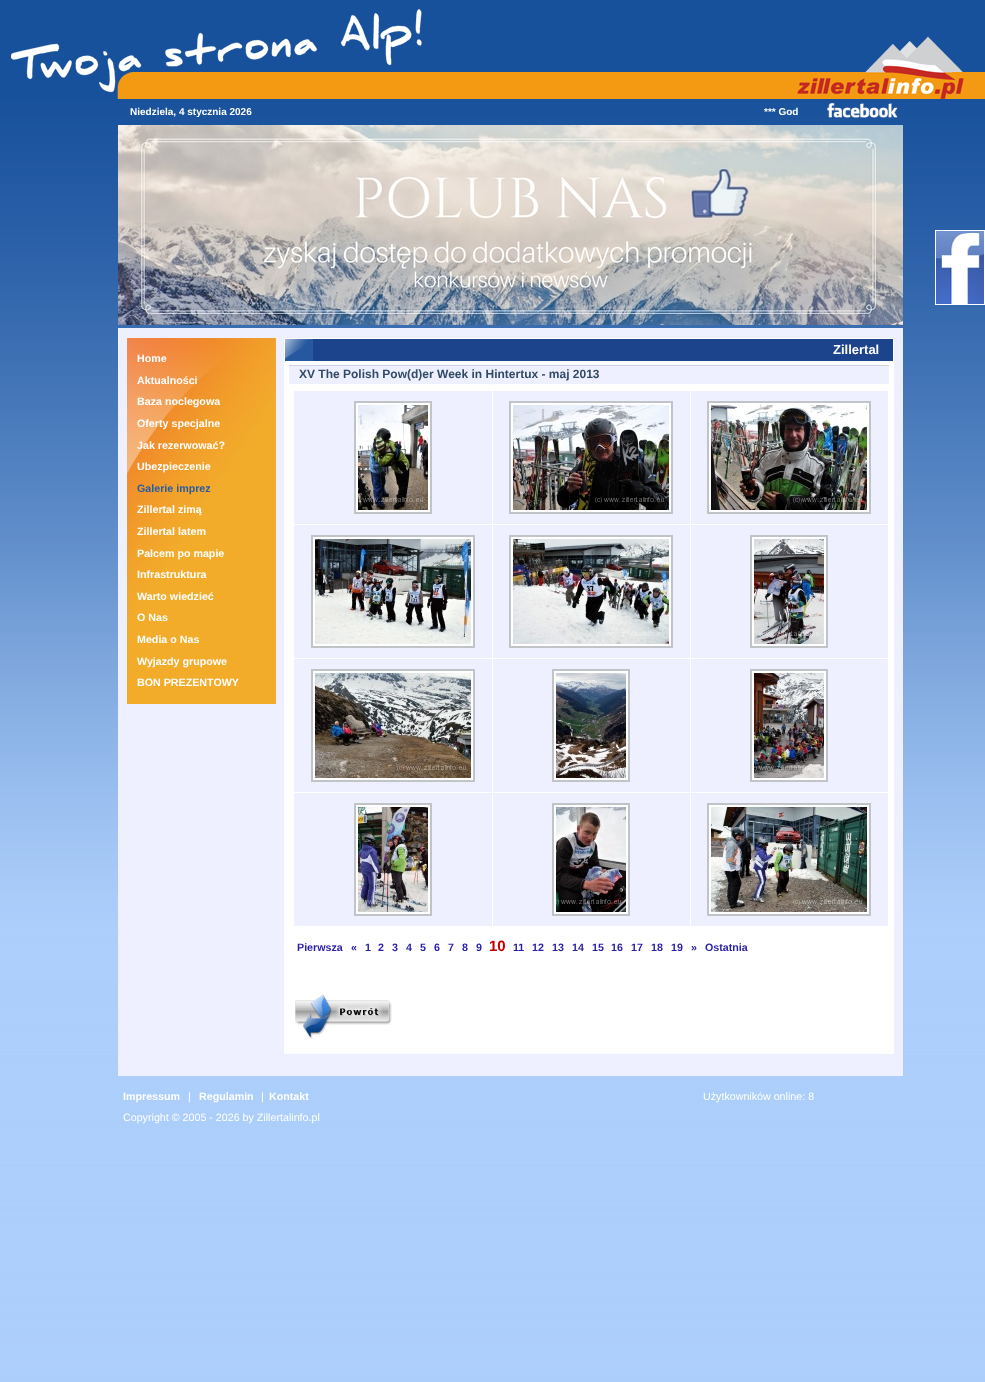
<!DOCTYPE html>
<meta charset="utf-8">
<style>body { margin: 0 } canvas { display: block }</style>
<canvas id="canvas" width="985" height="1382"></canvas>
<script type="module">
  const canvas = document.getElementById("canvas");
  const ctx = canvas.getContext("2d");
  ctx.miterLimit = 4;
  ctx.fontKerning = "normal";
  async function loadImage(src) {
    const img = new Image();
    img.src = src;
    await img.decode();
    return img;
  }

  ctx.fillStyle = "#ffffff";
  ctx.fillRect(0, 0, 985, 1382);
  ctx.drawImage(await loadImage("img3.png"), 0, 0, 985, 1382);
  ctx.fillStyle = "#f39912";
  ctx.fillRect(422, 72, 563, 27);
  ctx.drawImage(await loadImage("img1.png"), 0, 9, 422, 90);
  ctx.drawImage(await loadImage("img2.png"), 796, 36, 169, 63);
  ctx.font = "bold 10px Liberation Sans";
  ctx.fillStyle = "#ffffff";
  ctx.fillText("Niedziela, 4 stycznia 2026", 130, 115);
  ctx.fillText("*** God", 764, 115);
  ctx.drawImage(await loadImage("img4.png"), 827, 103, 71, 15);
  ctx.drawImage(await loadImage("img5.png"), 118, 125, 785, 200);
  ctx.fillStyle = "#eff0ff";
  ctx.fillRect(118, 328, 785, 748);
  ctx.fillStyle = "#f2ac2a";
  ctx.fillRect(127, 623, 149, 81);
  ctx.drawImage(await loadImage("img6.png"), 127, 338, 149, 285);
  ctx.font = "bold 10.7px Liberation Sans";
  ctx.fillStyle = "#ffffff";
  ctx.fillText("Home", 137, 362);
  ctx.fillText("Aktualności", 137, 384);
  ctx.fillText("Baza noclegowa", 137, 405);
  ctx.fillText("Oferty specjalne", 137, 427);
  ctx.fillText("Jak rezerwować?", 137, 449);
  ctx.fillText("Ubezpieczenie", 137, 470);
  ctx.fillStyle = "#275ca2";
  ctx.fillText("Galerie imprez", 137, 492);
  ctx.fillStyle = "#ffffff";
  ctx.fillText("Zillertal zimą", 137, 513);
  ctx.fillText("Zillertal latem", 137, 535);
  ctx.fillText("Palcem po mapie", 137, 557);
  ctx.fillText("Infrastruktura", 137, 578);
  ctx.fillText("Warto wiedzieć", 137, 600);
  ctx.fillText("O Nas", 137, 621);
  ctx.fillText("Media o Nas", 137, 643);
  ctx.fillText("Wyjazdy grupowe", 137, 665);
  ctx.fillText("BON PREZENTOWY", 137, 686);
  ctx.fillRect(284, 338, 610, 716);
  ctx.fillStyle = "#1c448c";
  ctx.fillRect(313, 339, 580, 22);
  ctx.drawImage(await loadImage("img7.png"), 285, 339, 28, 22);
  ctx.font = "bold 13px Liberation Sans";
  ctx.fillStyle = "#ffffff";
  ctx.fillText("Zillertal", 833, 354);
  ctx.fillStyle = "#eff0ff";
  ctx.fillRect(289, 366, 600, 18);
  ctx.fillStyle = "#d1d2df";
  ctx.fillRect(289, 365, 600, 1);
  ctx.font = "bold 12px Liberation Sans";
  ctx.fillStyle = "#314b67";
  ctx.fillText("XV The Polish Pow(d)er Week in Hintertux - maj 2013", 299, 378);
  ctx.fillStyle = "#eff0ff";
  ctx.fillRect(294, 391, 594, 535);
  ctx.fillStyle = "#ffffff";
  ctx.fillRect(294, 524, 595, 1);
  ctx.fillRect(294, 658, 595, 1);
  ctx.fillRect(294, 792, 595, 1);
  ctx.fillRect(492, 792, 1, 135);
  ctx.fillRect(492, 658, 1, 135);
  ctx.fillRect(492, 390, 1, 269);
  ctx.beginPath();
  ctx.rect(312, 536, 162, 111);
  ctx.fill();
  ctx.strokeStyle = "#c1c4c6";
  ctx.lineWidth = 2;
  ctx.stroke();
  ctx.drawImage(await loadImage("img8.png"), 315, 539, 156, 105);
  ctx.fillRect(690, 792, 1, 135);
  ctx.fillRect(690, 658, 1, 135);
  ctx.fillRect(690, 390, 1, 269);
  ctx.beginPath();
  ctx.rect(510, 536, 162, 111);
  ctx.fill();
  ctx.stroke();
  ctx.drawImage(await loadImage("img9.png"), 513, 539, 156, 105);
  ctx.beginPath();
  ctx.rect(751, 536, 76, 111);
  ctx.fill();
  ctx.stroke();
  ctx.drawImage(await loadImage("img10.png"), 754, 539, 70, 105);
  ctx.beginPath();
  ctx.rect(355, 402, 76, 111);
  ctx.fill();
  ctx.stroke();
  ctx.drawImage(await loadImage("img11.png"), 358, 405, 70, 105);
  ctx.beginPath();
  ctx.rect(510, 402, 162, 111);
  ctx.fill();
  ctx.stroke();
  ctx.drawImage(await loadImage("img12.png"), 513, 405, 156, 105);
  ctx.beginPath();
  ctx.rect(708, 402, 162, 111);
  ctx.fill();
  ctx.stroke();
  ctx.drawImage(await loadImage("img13.png"), 711, 405, 156, 105);
  ctx.beginPath();
  ctx.rect(751, 670, 76, 111);
  ctx.fill();
  ctx.stroke();
  ctx.drawImage(await loadImage("img14.png"), 754, 673, 70, 105);
  ctx.beginPath();
  ctx.rect(312, 670, 162, 111);
  ctx.fill();
  ctx.stroke();
  ctx.drawImage(await loadImage("img15.png"), 315, 673, 156, 105);
  ctx.beginPath();
  ctx.rect(553, 670, 76, 111);
  ctx.fill();
  ctx.stroke();
  ctx.drawImage(await loadImage("img16.png"), 556, 673, 70, 105);
  ctx.beginPath();
  ctx.rect(708, 804, 162, 111);
  ctx.fill();
  ctx.stroke();
  ctx.drawImage(await loadImage("img17.png"), 711, 807, 156, 105);
  ctx.beginPath();
  ctx.rect(355, 804, 76, 111);
  ctx.fill();
  ctx.stroke();
  ctx.drawImage(await loadImage("img18.png"), 358, 807, 70, 105);
  ctx.beginPath();
  ctx.rect(553, 804, 76, 111);
  ctx.fill();
  ctx.stroke();
  ctx.drawImage(await loadImage("img19.png"), 556, 807, 70, 105);
  ctx.font = "bold 10.7px Liberation Sans";
  ctx.fillStyle = "#2a1faa";
  ctx.fillText("Pierwsza", 297, 951);
  ctx.fillText("«", 351, 951);
  ctx.fillText("1", 365, 951);
  ctx.fillText("2", 378, 951);
  ctx.fillText("3", 392, 951);
  ctx.fillText("4", 406, 951);
  ctx.fillText("5", 420, 951);
  ctx.fillText("6", 434, 951);
  ctx.fillText("7", 448, 951);
  ctx.fillText("8", 462, 951);
  ctx.fillText("9", 476, 951);
  ctx.font = "bold 15px Liberation Sans";
  ctx.fillStyle = "#c40000";
  ctx.fillText("10", 489, 951);
  ctx.font = "bold 10.7px Liberation Sans";
  ctx.fillStyle = "#2a1faa";
  ctx.fillText("11", 513, 951);
  ctx.fillText("12", 532, 951);
  ctx.fillText("13", 552, 951);
  ctx.fillText("14", 572, 951);
  ctx.fillText("15", 592, 951);
  ctx.fillText("16", 611, 951);
  ctx.fillText("17", 631, 951);
  ctx.fillText("18", 651, 951);
  ctx.fillText("19", 671, 951);
  ctx.fillText("»", 691, 951);
  ctx.fillText("Ostatnia", 705, 951);
  ctx.drawImage(await loadImage("img20.png"), 295, 994, 97, 45);
  ctx.fillStyle = "#ffffff";
  ctx.fillText("Impressum", 123, 1100);
  ctx.font = "10.7px Liberation Sans";
  ctx.fillText("|", 188, 1100);
  ctx.font = "bold 10.7px Liberation Sans";
  ctx.fillText("Regulamin", 199, 1100);
  ctx.font = "10.7px Liberation Sans";
  ctx.fillText("|", 261, 1100);
  ctx.font = "bold 10.7px Liberation Sans";
  ctx.fillText("Kontakt", 269, 1100);
  ctx.font = "10.7px Liberation Sans";
  ctx.fillText("Użytkowników online: 8", 703, 1100);
  ctx.fillText("Copyright © 2005 - 2026 by Zillertalinfo.pl", 123, 1121);
  ctx.drawImage(await loadImage("img21.png"), 935, 230, 50, 75);
</script>
